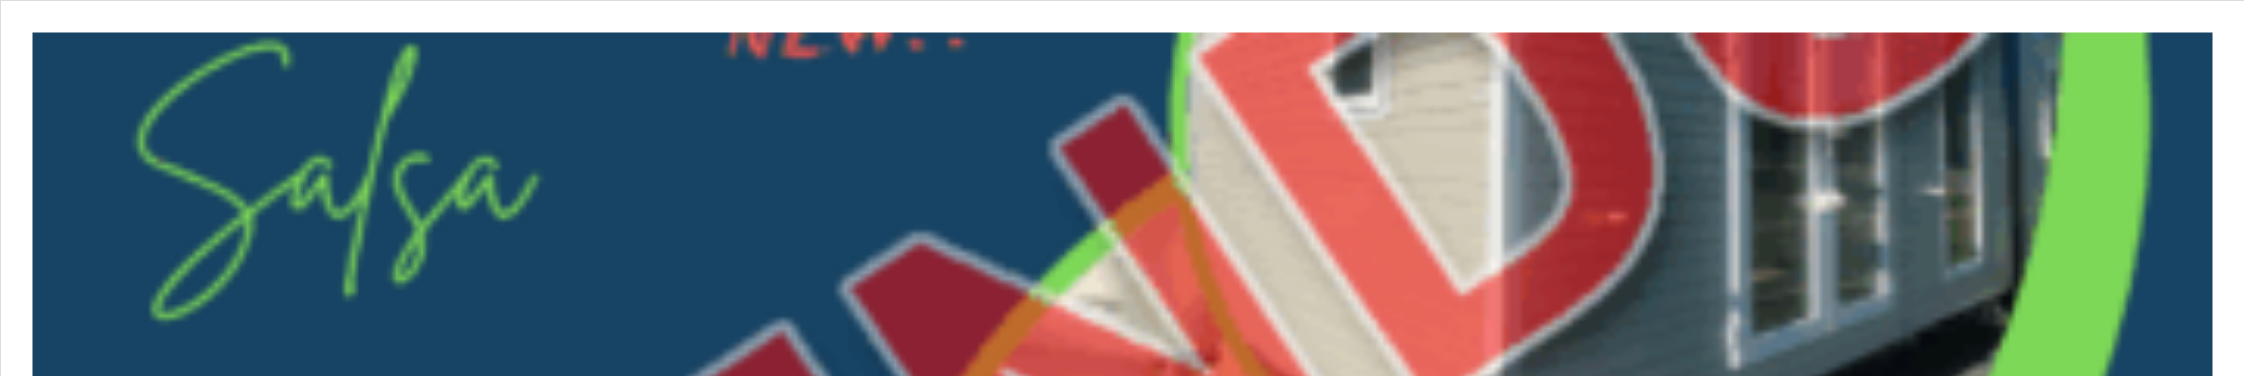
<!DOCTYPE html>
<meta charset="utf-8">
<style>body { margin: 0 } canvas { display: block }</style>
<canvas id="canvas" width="2244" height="376"></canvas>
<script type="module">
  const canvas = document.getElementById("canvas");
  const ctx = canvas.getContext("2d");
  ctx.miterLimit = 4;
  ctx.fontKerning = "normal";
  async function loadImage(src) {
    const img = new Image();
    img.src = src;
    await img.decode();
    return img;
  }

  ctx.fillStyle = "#ffffff";
  ctx.fillRect(0, 0, 2244, 376);
  ctx.strokeStyle = "#dcdcde";
  ctx.strokeRect(0.5, 0.5, 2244, 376);
  ctx.drawImage(await loadImage("img1.png"), 32, 32, 2181, 344);
</script>
